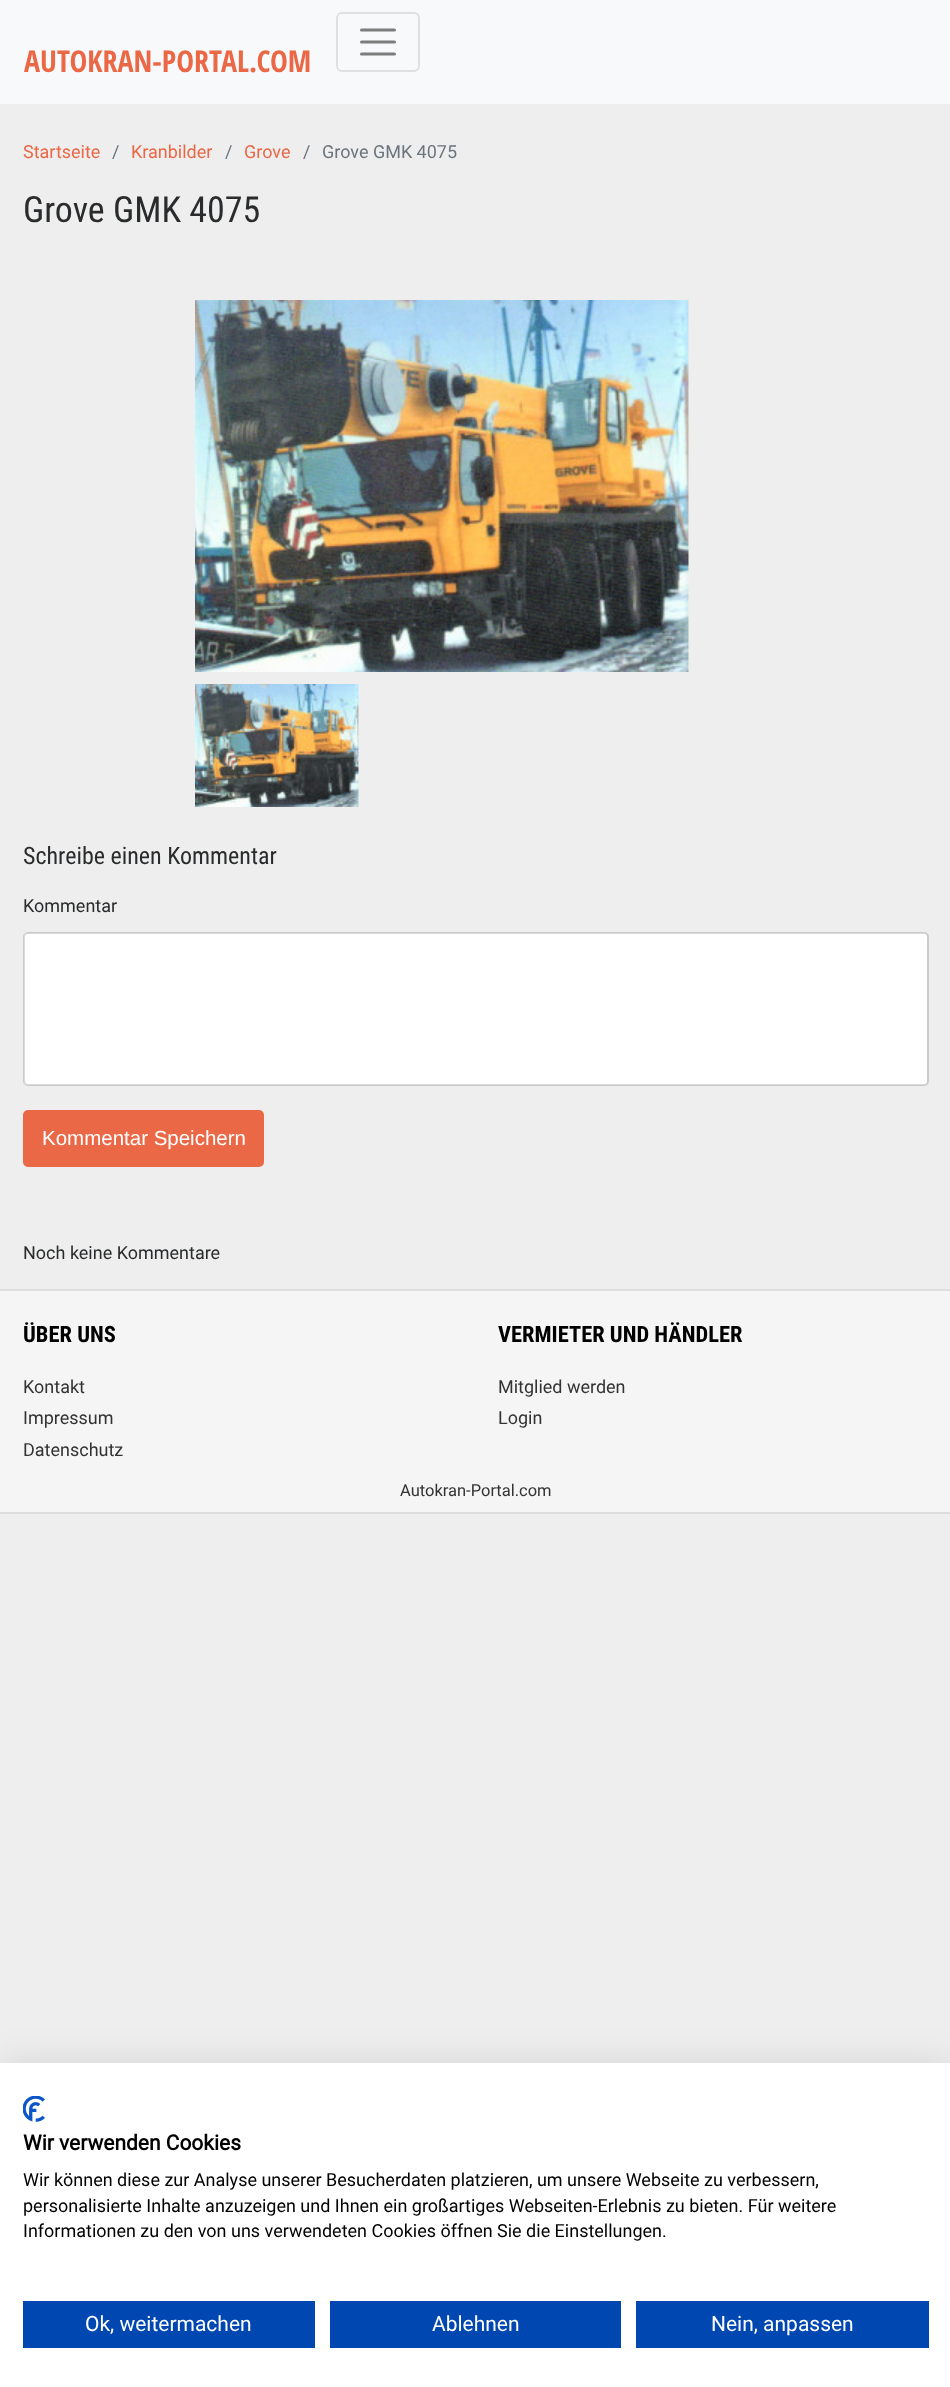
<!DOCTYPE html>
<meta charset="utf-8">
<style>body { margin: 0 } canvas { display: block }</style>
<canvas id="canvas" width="950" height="2387"></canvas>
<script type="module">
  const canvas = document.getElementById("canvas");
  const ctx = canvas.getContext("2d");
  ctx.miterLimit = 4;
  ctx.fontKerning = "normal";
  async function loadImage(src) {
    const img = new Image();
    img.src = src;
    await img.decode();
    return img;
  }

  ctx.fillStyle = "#eeeeee";
  ctx.fillRect(0, 0, 950, 2387);
  ctx.fillStyle = "#f8f9fa";
  ctx.fillRect(0, 0, 950, 104);
  ctx.font = "bold 30px Open Sans Condensed";
  ctx.fillStyle = "#eb6846";
  ctx.fillText("AUTOKRAN-PORTAL.COM", 24, 72);
  ctx.beginPath();
  ctx.roundRect(337, 13, 82, 58, 5);
  ctx.strokeStyle = "#dfe0e1";
  ctx.lineWidth = 2;
  ctx.stroke();
  ctx.beginPath();
  ctx.moveTo(361.5, 30);
  ctx.lineTo(394.5, 30);
  ctx.moveTo(361.5, 42);
  ctx.lineTo(394.5, 42);
  ctx.moveTo(361.5, 54);
  ctx.lineTo(394.5, 54);
  ctx.strokeStyle = "#7c7d7d";
  ctx.lineWidth = 3;
  ctx.lineCap = "round";
  ctx.stroke();
  ctx.font = "18px Roboto";
  ctx.fillText("Startseite", 23, 158);
  ctx.fillStyle = "#6c757d";
  ctx.fillText("/", 112, 158);
  ctx.fillStyle = "#eb6846";
  ctx.fillText("Kranbilder", 131, 158);
  ctx.fillStyle = "#6c757d";
  ctx.fillText("/", 225, 158);
  ctx.fillStyle = "#eb6846";
  ctx.fillText("Grove", 244, 158);
  ctx.fillStyle = "#6c757d";
  ctx.fillText("/", 303, 158);
  ctx.fillText("Grove GMK 4075", 322, 158);
  ctx.font = "36px Roboto Condensed";
  ctx.fillStyle = "#292b2c";
  ctx.fillText("Grove GMK 4075", 23, 222);
  ctx.drawImage(await loadImage("img1.png"), 195, 300, 494, 372);
  ctx.drawImage(await loadImage("img2.png"), 195, 684, 164, 123);
  ctx.font = "24px Roboto Condensed";
  ctx.fillText("Schreibe einen Kommentar", 23, 864);
  ctx.font = "18px Roboto";
  ctx.fillText("Kommentar", 23, 912);
  ctx.fillStyle = "#ffffff";
  ctx.beginPath();
  ctx.roundRect(24, 933, 903, 152, 3);
  ctx.fill();
  ctx.beginPath();
  ctx.roundRect(24, 933, 904, 152, 4);
  ctx.strokeStyle = "rgba(0, 0, 0, 0.15)";
  ctx.lineWidth = 2;
  ctx.stroke();
  ctx.fillStyle = "#eb6846";
  ctx.beginPath();
  ctx.roundRect(24, 1111, 239, 55, 4);
  ctx.fill();
  ctx.strokeStyle = "#eb6846";
  ctx.stroke();
  ctx.font = "20.5px Liberation Sans";
  ctx.fillStyle = "#ffffff";
  ctx.fillText("Kommentar Speichern", 42, 1145);
  ctx.font = "18px Roboto";
  ctx.fillStyle = "#292b2c";
  ctx.fillText("Noch keine Kommentare", 23, 1259);
  ctx.fillStyle = "#f5f5f5";
  ctx.fillRect(0, 1291, 950, 221);
  ctx.fillStyle = "#dddddd";
  ctx.fillRect(0, 1289, 950, 2);
  ctx.fillRect(0, 1512, 950, 2);
  ctx.font = "bold 22.5px Roboto Condensed";
  ctx.fillStyle = "#000000";
  ctx.fillText("ÜBER UNS", 23, 1342);
  ctx.font = "18px Roboto";
  ctx.fillStyle = "#333333";
  ctx.fillText("Kontakt", 23, 1393);
  ctx.fillText("Impressum", 23, 1424);
  ctx.fillText("Datenschutz", 23, 1456);
  ctx.font = "bold 22.5px Roboto Condensed";
  ctx.fillStyle = "#000000";
  ctx.fillText("VERMIETER UND HÄNDLER", 498, 1342);
  ctx.font = "18px Roboto";
  ctx.fillStyle = "#333333";
  ctx.fillText("Mitglied werden", 498, 1393);
  ctx.fillText("Login", 498, 1424);
  ctx.font = "16.5px Roboto";
  ctx.fillText("Autokran-Portal.com", 400, 1496);
  ctx.fillStyle = "rgba(0, 0, 0, 0.1)";
  ctx.filter = "blur(18px)";
  ctx.beginPath();
  ctx.rect(0, 2063, 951, 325);
  ctx.fill();
  ctx.filter = "none";
  ctx.fillStyle = "#ffffff";
  ctx.fillRect(0, 2063, 950, 324);
  ctx.drawImage(await loadImage("img3.png"), 23, 2096, 22, 26);
  ctx.font = "bold 21px Roboto";
  ctx.fillStyle = "#000000";
  ctx.fillText("Wir verwenden Cookies", 23, 2150);
  ctx.font = "18px Roboto";
  ctx.fillText("Wir können diese zur Analyse unserer Besucherdaten platzieren, um unsere Webseite zu verbessern,", 23, 2186);
  ctx.fillText("personalisierte Inhalte anzuzeigen und Ihnen ein großartiges Webseiten-Erlebnis zu bieten. Für weitere", 23, 2212);
  ctx.fillText("Informationen zu den von uns verwendeten Cookies öffnen Sie die Einstellungen.", 23, 2237);
  ctx.fillStyle = "#0047b2";
  ctx.fillRect(23, 2301, 292, 47);
  ctx.font = "21px Roboto";
  ctx.fillStyle = "#ffffff";
  ctx.fillText("Ok, weitermachen", 85, 2331);
  ctx.fillStyle = "#0047b2";
  ctx.fillRect(330, 2301, 291, 47);
  ctx.fillStyle = "#ffffff";
  ctx.fillText("Ablehnen", 432, 2331);
  ctx.fillStyle = "#0047b2";
  ctx.fillRect(636, 2301, 293, 47);
  ctx.fillStyle = "#ffffff";
  ctx.fillText("Nein, anpassen", 711, 2331);
</script>
